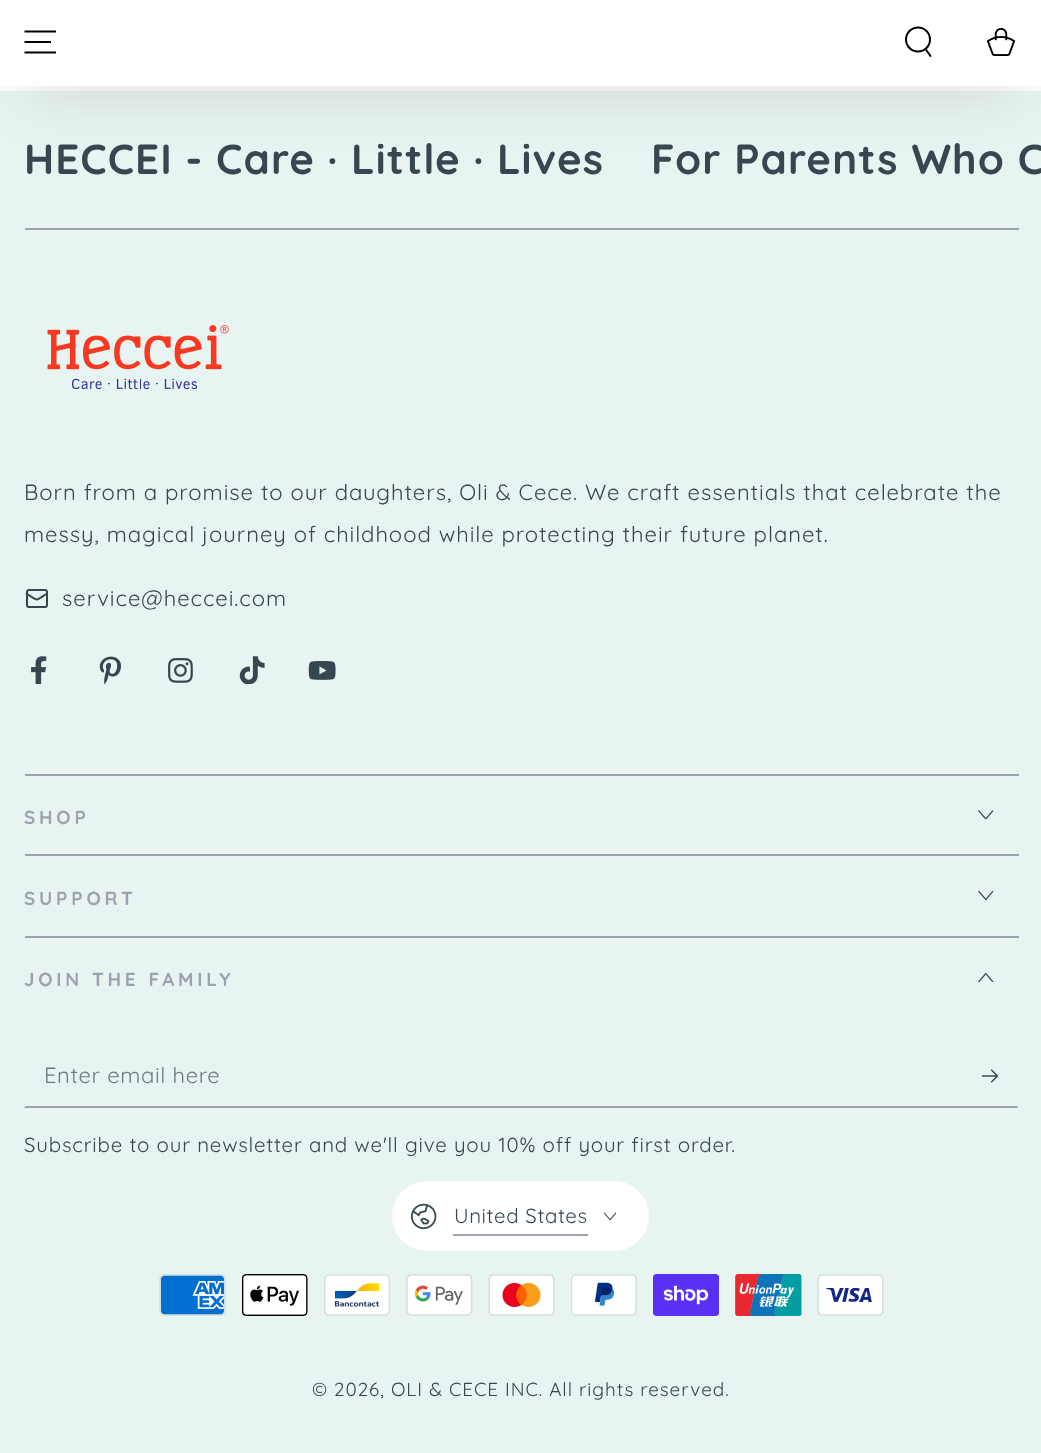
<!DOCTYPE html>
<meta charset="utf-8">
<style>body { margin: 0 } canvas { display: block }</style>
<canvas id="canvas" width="1041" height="1453"></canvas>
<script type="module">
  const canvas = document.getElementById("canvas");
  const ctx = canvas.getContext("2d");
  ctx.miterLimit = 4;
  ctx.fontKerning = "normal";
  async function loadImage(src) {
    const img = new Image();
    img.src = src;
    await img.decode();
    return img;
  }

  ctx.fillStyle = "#fdfdfd";
  ctx.fillRect(0, 0, 1041, 1453);
  ctx.fillStyle = "#e8f4f1";
  ctx.fillRect(0, 91, 1041, 1362);
  ctx.fillStyle = "rgba(26, 27, 24, 0.2)";
  ctx.filter = "blur(31.5px)";
  ctx.beginPath();
  ctx.roundRect(25, 54, 994, 32, 16);
  ctx.fill();
  ctx.filter = "none";
  ctx.fillStyle = "#ffffff";
  ctx.fillRect(0, 0, 1041, 86);
  ctx.beginPath();
  ctx.moveTo(24.5, 52.5);
  ctx.lineTo(56, 52.5);
  ctx.moveTo(24.5, 42);
  ctx.lineTo(51, 42);
  ctx.moveTo(24.5, 31.5);
  ctx.lineTo(56, 31.5);
  ctx.strokeStyle = "#000000";
  ctx.lineWidth = 1.8;
  ctx.stroke();
  ctx.beginPath();
  ctx.arc(918, 39.5, 12, 0, Math.PI * 2);
  ctx.lineWidth = 2;
  ctx.stroke();
  ctx.beginPath();
  ctx.moveTo(925.5, 49);
  ctx.lineTo(930.5, 56);
  ctx.lineCap = "round";
  ctx.stroke();
  ctx.drawImage(await loadImage("img1.png"), 986, 27, 30, 29);
  ctx.letterSpacing = "1.05px";
  ctx.font = "bold 42px Quicksand";
  ctx.fillStyle = "#37474f";
  ctx.fillText("HECCEI - Care · Little · Lives", 24, 174);
  ctx.fillText("For Parents Who C", 651, 174);
  ctx.fillStyle = "#9ca3af";
  ctx.fillRect(25, 228, 994, 2);
  ctx.fillRect(25, 774, 994, 2);
  ctx.drawImage(await loadImage("img2.png"), 47, 325, 182, 65);
  ctx.letterSpacing = "0.95px";
  ctx.font = "22.05px Quicksand";
  ctx.fillStyle = "#37474f";
  ctx.fillText("Born from a promise to our daughters, Oli & Cece. We craft essentials that celebrate the", 24, 500);
  ctx.fillText("messy, magical journey of childhood while protecting their future planet.", 24, 542);
  ctx.beginPath();
  ctx.moveTo(47, 593.5);
  ctx.bezierCurveTo(34.5, 601.5, 39, 601.5, 26.5, 593.5);
  ctx.strokeStyle = "#37474f";
  ctx.lineJoin = "round";
  ctx.stroke();
  ctx.beginPath();
  ctx.roundRect(27, 590, 20, 17, 2);
  ctx.lineJoin = "miter";
  ctx.stroke();
  ctx.fillText("service@heccei.com", 62, 606);
  ctx.drawImage(await loadImage("img3.png"), 31, 656, 16, 28);
  ctx.drawImage(await loadImage("img4.png"), 99, 656, 22, 28);
  ctx.drawImage(await loadImage("img5.png"), 168, 658, 25, 25);
  ctx.drawImage(await loadImage("img6.png"), 239, 656, 26, 28);
  ctx.drawImage(await loadImage("img7.png"), 308, 661, 28, 19);
  ctx.fillStyle = "#9ca3af";
  ctx.fillRect(25, 854, 994, 2);
  ctx.letterSpacing = "3.75px";
  ctx.font = "bold 18.9px Quicksand";
  ctx.fillText("SHOP", 24, 824);
  ctx.drawImage(await loadImage("img8.png"), 978, 810, 16, 9);
  ctx.fillRect(25, 936, 994, 2);
  ctx.fillText("SUPPORT", 24, 905);
  ctx.drawImage(await loadImage("img9.png"), 978, 891, 16, 10);
  ctx.fillText("JOIN THE FAMILY", 24, 986);
  ctx.drawImage(await loadImage("img10.png"), 978, 973, 16, 9);
  ctx.beginPath();
  ctx.moveTo(1018, 1108);
  ctx.lineTo(24, 1108);
  ctx.lineTo(26, 1106);
  ctx.lineTo(1017, 1106);
  ctx.closePath();
  ctx.fill();
  ctx.letterSpacing = "0.6px";
  ctx.font = "22.05px Quicksand";
  ctx.fillStyle = "#6c7b80";
  ctx.fillText("Enter email here", 44, 1083);
  ctx.drawImage(await loadImage("img11.png"), 982, 1069, 17, 14);
  ctx.letterSpacing = "0.8px";
  ctx.font = "20.45px Quicksand";
  ctx.fillStyle = "#37474f";
  ctx.fillText("Subscribe to our newsletter and we'll give you 10% off your first order.", 24, 1152);
  ctx.fillStyle = "#ffffff";
  ctx.beginPath();
  ctx.roundRect(392, 1181, 257, 70, 35);
  ctx.fill();
  ctx.drawImage(await loadImage("img12.png"), 411, 1203, 26, 27);
  ctx.fillStyle = "#9ca3af";
  ctx.fillRect(453, 1234, 135, 2);
  ctx.letterSpacing = "0.6px";
  ctx.fillStyle = "#37474f";
  ctx.fillText("United States", 454, 1223);
  ctx.drawImage(await loadImage("img13.png"), 604, 1212, 12, 9);
  ctx.drawImage(await loadImage("img14.png"), 159, 1274, 67, 42);
  ctx.drawImage(await loadImage("img15.png"), 242, 1274, 66, 42);
  ctx.drawImage(await loadImage("img16.png"), 324, 1274, 66, 42);
  ctx.drawImage(await loadImage("img17.png"), 406, 1274, 67, 42);
  ctx.drawImage(await loadImage("img18.png"), 488, 1274, 67, 42);
  ctx.drawImage(await loadImage("img19.png"), 571, 1274, 66, 42);
  ctx.drawImage(await loadImage("img20.png"), 653, 1274, 66, 42);
  ctx.drawImage(await loadImage("img21.png"), 735, 1274, 67, 42);
  ctx.drawImage(await loadImage("img22.png"), 817, 1274, 67, 42);
  ctx.letterSpacing = "0.95px";
  ctx.font = "18.9px Quicksand";
  ctx.fillText("© 2026, OLI & CECE INC. All rights reserved.", 312, 1396);
</script>
